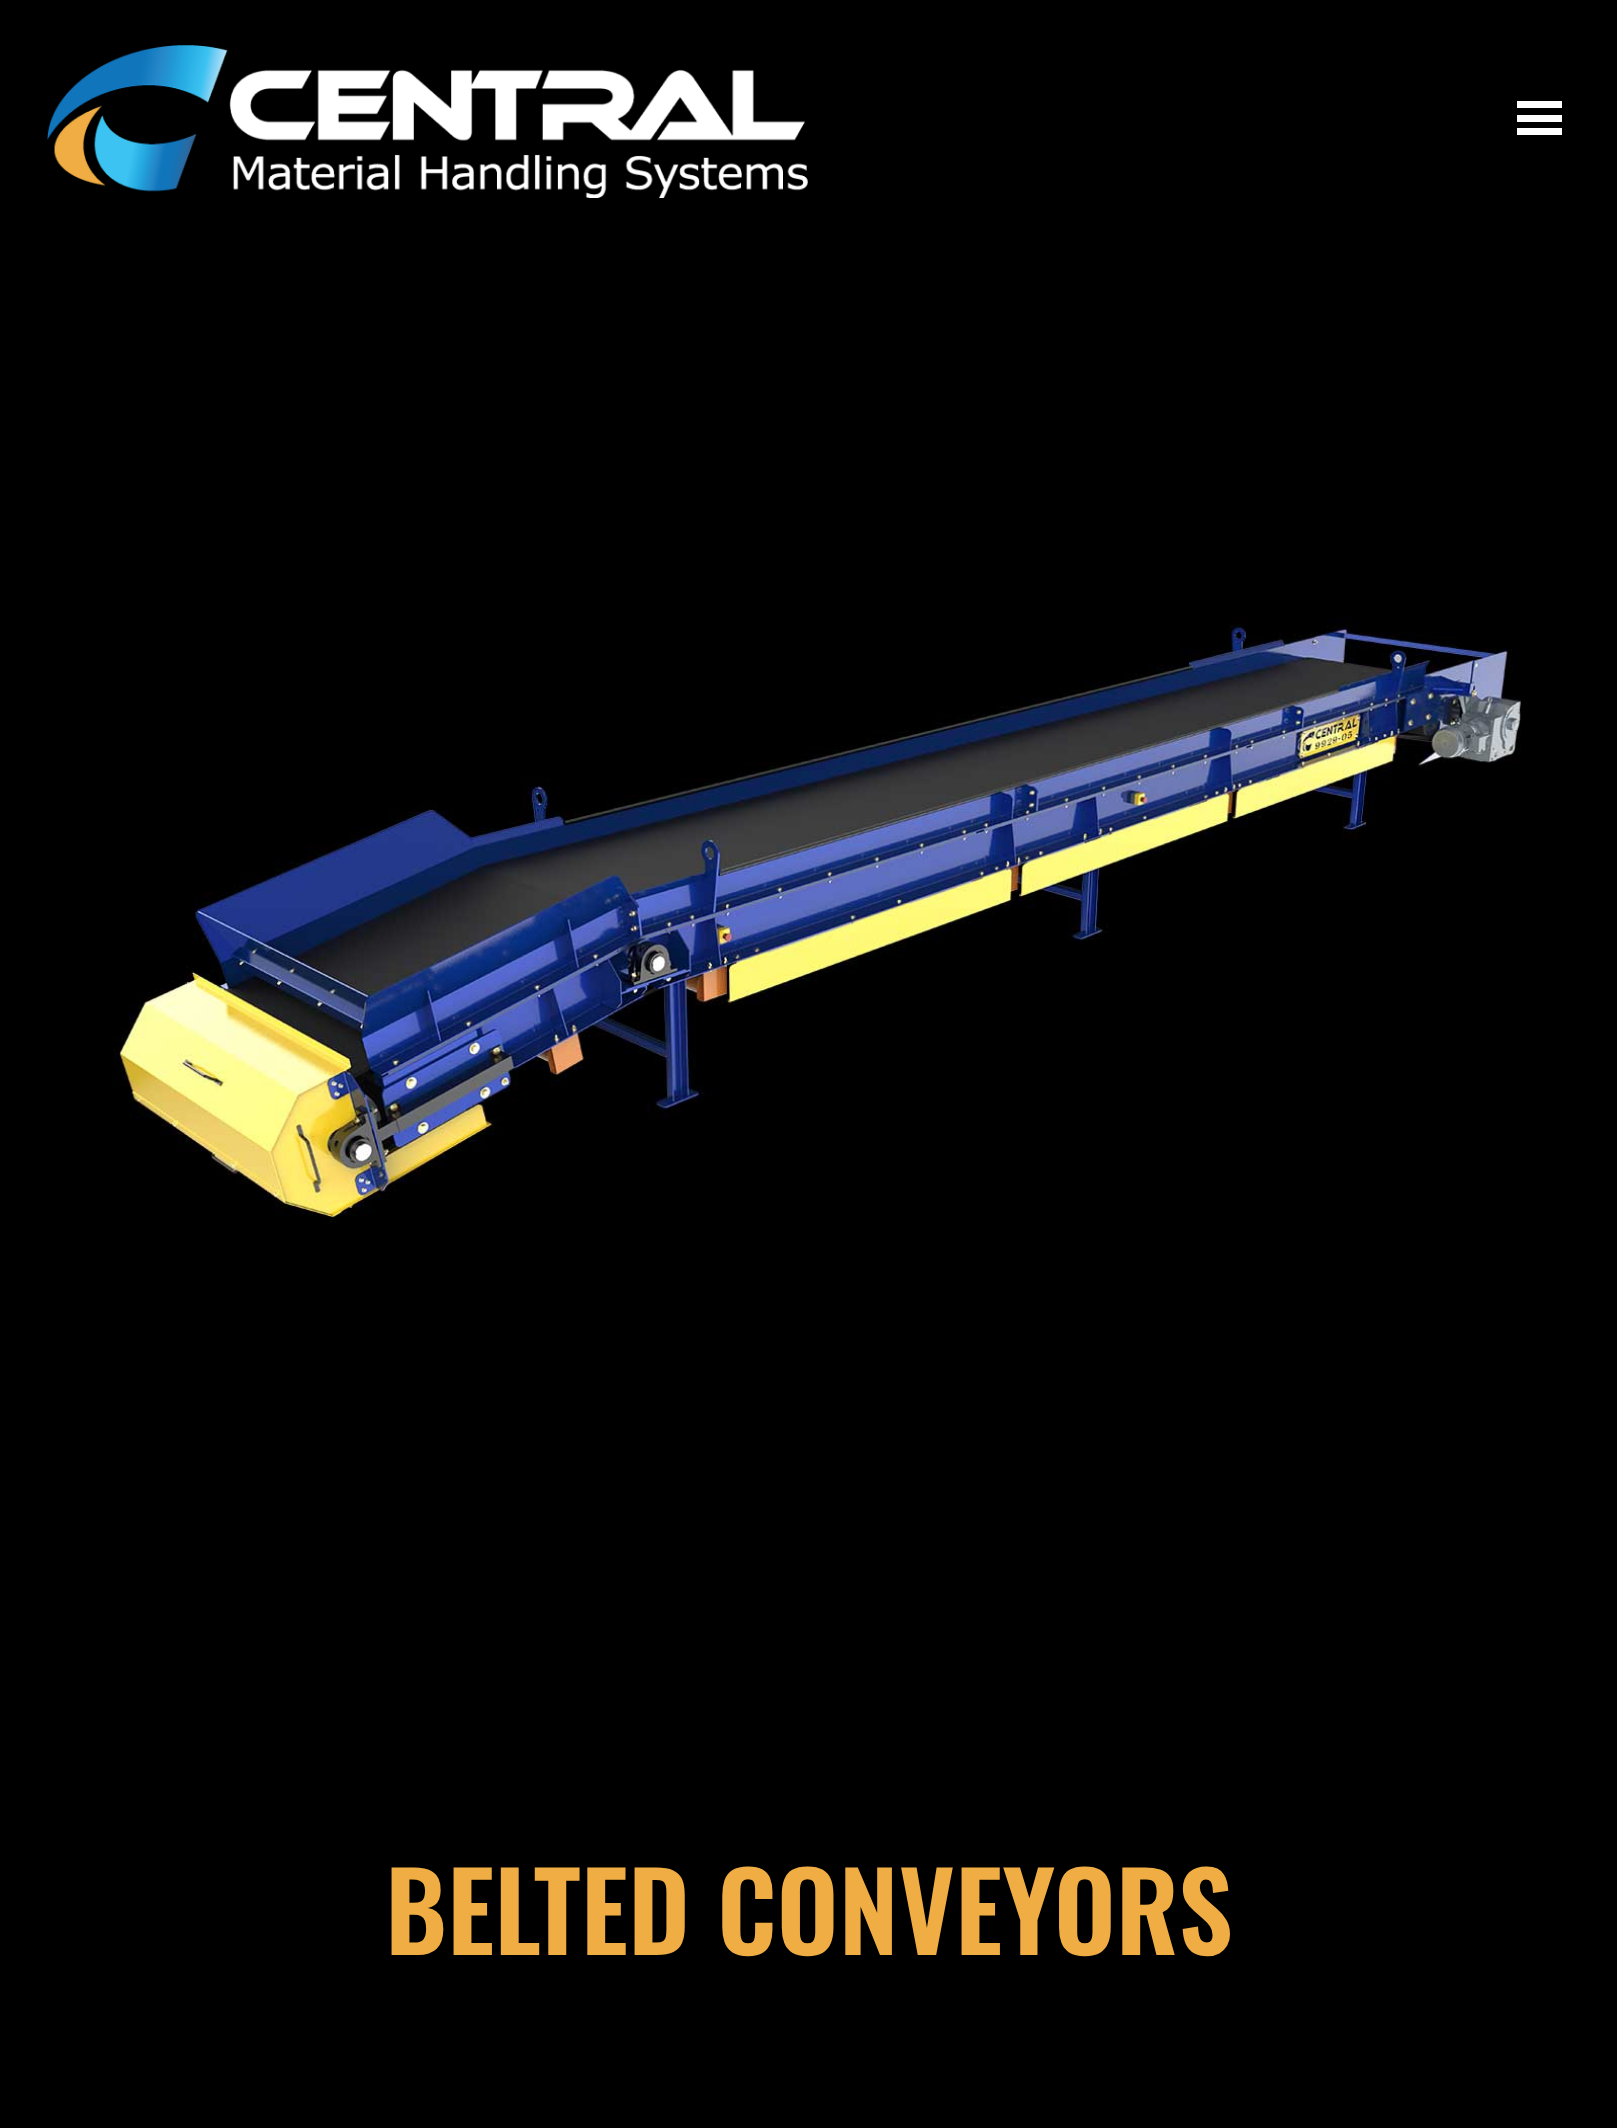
<!DOCTYPE html>
<meta charset="utf-8">
<style>body { margin: 0 } canvas { display: block }</style>
<canvas id="canvas" width="1617" height="2128"></canvas>
<script type="module">
  const canvas = document.getElementById("canvas");
  const ctx = canvas.getContext("2d");
  ctx.miterLimit = 4;
  ctx.fontKerning = "normal";
  async function loadImage(src) {
    const img = new Image();
    img.src = src;
    await img.decode();
    return img;
  }

  ctx.fillStyle = "#000000";
  ctx.fillRect(0, 0, 1617, 2128);
  ctx.drawImage(await loadImage("img1.png"), 47, 45, 761, 153);
  ctx.fillStyle = "#ffffff";
  ctx.fillRect(1517, 115, 45, 7);
  ctx.fillRect(1517, 101, 45, 7);
  ctx.fillRect(1517, 128, 45, 7);
  ctx.drawImage(await loadImage("img2.png"), 113, 617, 1408, 607);
  ctx.font = "600 108px Oswald";
  ctx.fillStyle = "#f0ad43";
  ctx.fillText("BELTED CONVEYORS", 385, 1955);
</script>
